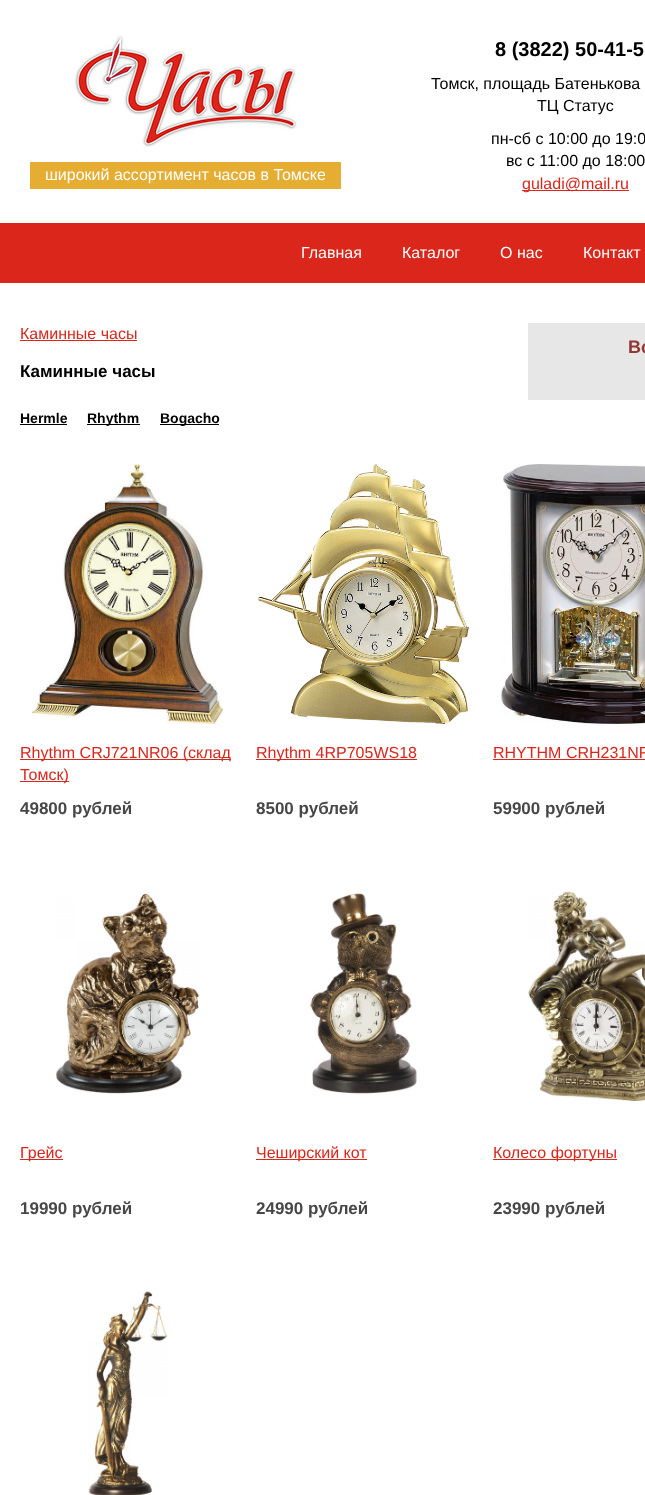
<!DOCTYPE html>
<meta charset="utf-8">
<style>body { margin: 0 } canvas { display: block }</style>
<canvas id="canvas" width="645" height="1495"></canvas>
<script type="module">
  const canvas = document.getElementById("canvas");
  const ctx = canvas.getContext("2d");
  ctx.miterLimit = 4;
  ctx.fontKerning = "normal";
  async function loadImage(src) {
    const img = new Image();
    img.src = src;
    await img.decode();
    return img;
  }

  ctx.fillStyle = "#ffffff";
  ctx.fillRect(0, 0, 645, 1495);
  ctx.drawImage(await loadImage("img1.png"), 73, 35, 224, 113);
  ctx.fillStyle = "#e5ad32";
  ctx.fillRect(30, 162, 311, 27);
  ctx.font = "16px Liberation Sans";
  ctx.fillStyle = "#ffffff";
  ctx.fillText("широкий ассортимент часов в Томске", 45, 180);
  ctx.font = "bold 20px Liberation Sans";
  ctx.fillStyle = "#000000";
  ctx.fillText("8 (3822) 50-41-5", 495, 56);
  ctx.font = "16px Liberation Sans";
  ctx.fillText("Томск, площадь Батенькова", 431, 89);
  ctx.fillText("ТЦ Статус", 537, 111);
  ctx.fillText("пн-сб с 10:00 до 19:0", 491, 144);
  ctx.fillText("вс с 11:00 до 18:00", 506, 166);
  ctx.fillStyle = "#db261b";
  ctx.fillRect(522, 190, 107, 1);
  ctx.fillText("guladi@mail.ru", 522, 189);
  ctx.fillRect(0, 223, 645, 60);
  ctx.fillStyle = "#ffffff";
  ctx.fillText("Главная", 301, 258);
  ctx.fillText("Каталог", 402, 258);
  ctx.fillText("О нас", 500, 258);
  ctx.fillText("Контакт", 583, 258);
  ctx.fillStyle = "#db261b";
  ctx.fillText("Каминные часы", 20, 339);
  ctx.fillRect(20, 340, 117, 1);
  ctx.fillStyle = "#e7e7e7";
  ctx.fillRect(528, 323, 117, 77);
  ctx.font = "bold 18px Liberation Sans";
  ctx.fillStyle = "#953734";
  ctx.fillText("Вс", 628, 353);
  ctx.font = "bold 17px Liberation Sans";
  ctx.fillStyle = "#000000";
  ctx.fillText("Каминные часы", 20, 377);
  ctx.font = "bold 14px Liberation Sans";
  ctx.fillText("Hermle", 20, 423);
  ctx.fillRect(20, 424, 47, 1);
  ctx.fillRect(87, 424, 53, 1);
  ctx.fillText("Rhythm", 87, 423);
  ctx.fillRect(160, 424, 59, 1);
  ctx.fillText("Bogacho", 160, 423);
  ctx.drawImage(await loadImage("img2.png"), 32, 464, 191, 260);
  ctx.fillStyle = "#db261b";
  ctx.fillRect(20, 759, 211, 1);
  ctx.font = "16px Liberation Sans";
  ctx.fillText("Rhythm CRJ721NR06 (склад", 20, 758);
  ctx.fillRect(20, 781, 49, 1);
  ctx.fillText("Томск)", 20, 780);
  ctx.font = "bold 17px Liberation Sans";
  ctx.fillStyle = "#474747";
  ctx.fillText("49800 рублей", 20, 814);
  ctx.drawImage(await loadImage("img3.png"), 258, 464, 211, 260);
  ctx.fillStyle = "#db261b";
  ctx.fillRect(256, 759, 161, 1);
  ctx.font = "16px Liberation Sans";
  ctx.fillText("Rhythm 4RP705WS18", 256, 758);
  ctx.font = "bold 17px Liberation Sans";
  ctx.fillStyle = "#474747";
  ctx.fillText("8500 рублей", 256, 814);
  ctx.drawImage(await loadImage("img4.png"), 501, 464, 144, 260);
  ctx.font = "16px Liberation Sans";
  ctx.fillStyle = "#db261b";
  ctx.fillText("RHYTHM CRH231NR", 493, 758);
  ctx.fillRect(493, 759, 152, 1);
  ctx.font = "bold 17px Liberation Sans";
  ctx.fillStyle = "#474747";
  ctx.fillText("59900 рублей", 493, 814);
  ctx.drawImage(await loadImage("img5.png"), 56, 893, 144, 201);
  ctx.fillStyle = "#db261b";
  ctx.fillRect(20, 1159, 43, 1);
  ctx.font = "16px Liberation Sans";
  ctx.fillText("Грейс", 20, 1158);
  ctx.font = "bold 17px Liberation Sans";
  ctx.fillStyle = "#474747";
  ctx.fillText("19990 рублей", 20, 1214);
  ctx.drawImage(await loadImage("img6.png"), 310, 893, 107, 201);
  ctx.fillStyle = "#db261b";
  ctx.fillRect(256, 1159, 111, 1);
  ctx.font = "16px Liberation Sans";
  ctx.fillText("Чеширский кот", 256, 1158);
  ctx.font = "bold 17px Liberation Sans";
  ctx.fillStyle = "#474747";
  ctx.fillText("24990 рублей", 256, 1214);
  ctx.drawImage(await loadImage("img7.png"), 528, 891, 117, 210);
  ctx.fillStyle = "#db261b";
  ctx.fillRect(493, 1159, 124, 1);
  ctx.font = "16px Liberation Sans";
  ctx.fillText("Колесо фортуны", 493, 1158);
  ctx.font = "bold 17px Liberation Sans";
  ctx.fillStyle = "#474747";
  ctx.fillText("23990 рублей", 493, 1214);
  ctx.drawImage(await loadImage("img8.png"), 88, 1291, 80, 204);
</script>
